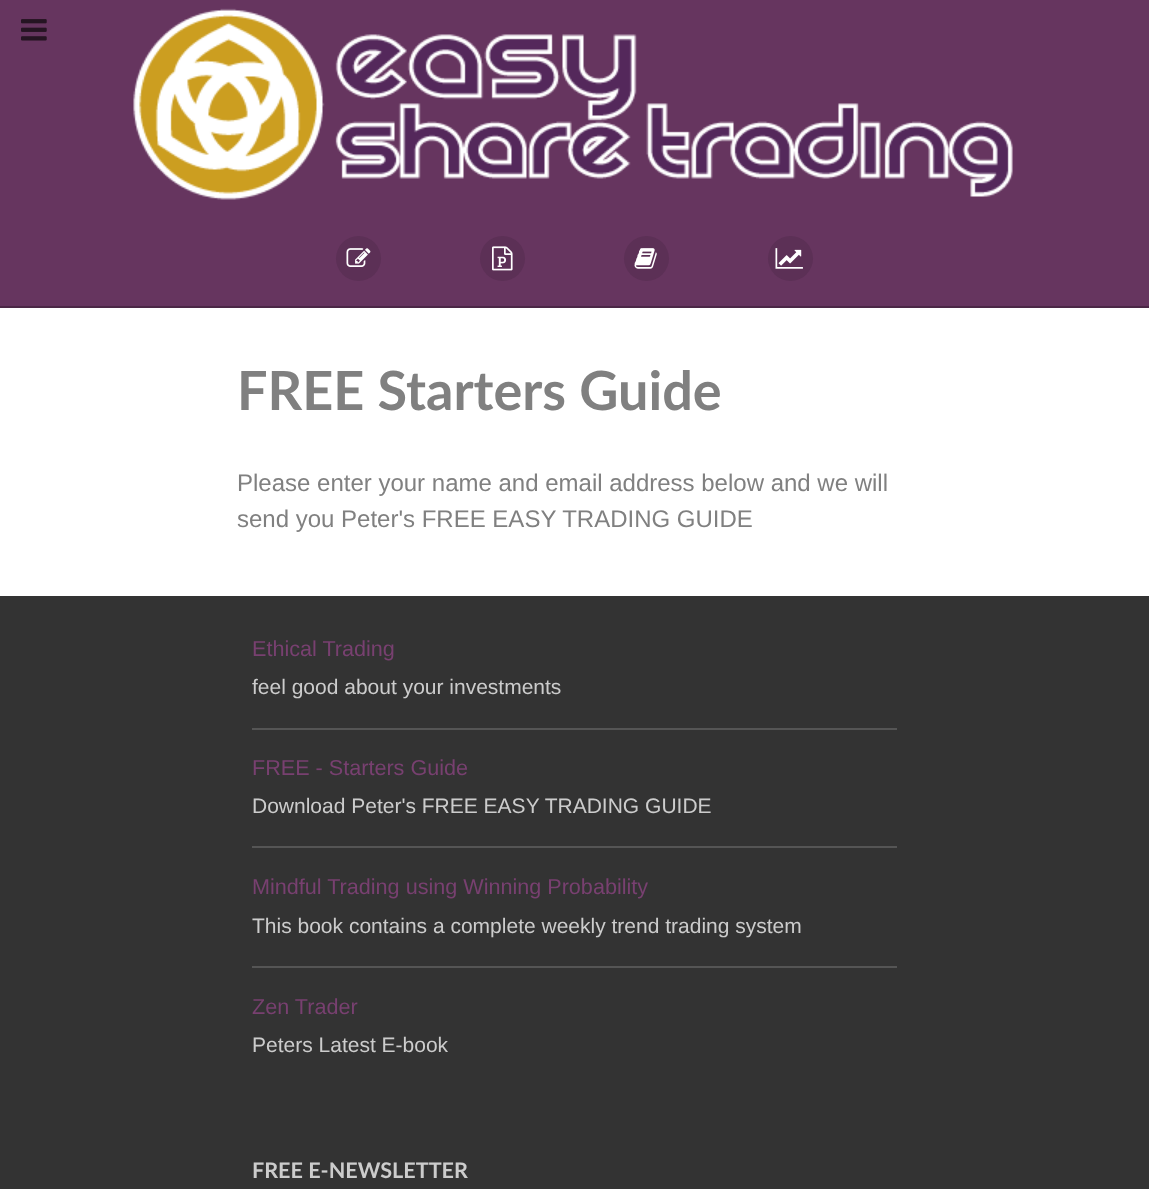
<!DOCTYPE html>
<meta charset="utf-8">
<style>body { margin: 0 } canvas { display: block }</style>
<canvas id="canvas" width="1149" height="1189"></canvas>
<script type="module">
  const canvas = document.getElementById("canvas");
  const ctx = canvas.getContext("2d");
  ctx.miterLimit = 4;
  ctx.fontKerning = "normal";
  async function loadImage(src) {
    const img = new Image();
    img.src = src;
    await img.decode();
    return img;
  }

  ctx.fillStyle = "#ffffff";
  ctx.fillRect(0, 0, 1149, 1189);
  ctx.fillStyle = "#66355f";
  ctx.fillRect(0, 0, 1149, 306);
  ctx.drawImage(await loadImage("img1.png"), 133, 8, 880, 192);
  ctx.fillStyle = "#5c3056";
  ctx.beginPath();
  ctx.arc(358.5, 258.5, 22.5, 0, Math.PI * 2);
  ctx.fill();
  ctx.drawImage(await loadImage("img2.png"), 346, 248, 25, 19);
  ctx.beginPath();
  ctx.arc(502.5, 258.5, 22.5, 0, Math.PI * 2);
  ctx.fill();
  ctx.drawImage(await loadImage("img3.png"), 492, 246, 21, 25);
  ctx.beginPath();
  ctx.arc(646.5, 258.5, 22.5, 0, Math.PI * 2);
  ctx.fill();
  ctx.drawImage(await loadImage("img4.png"), 634, 248, 23, 21);
  ctx.beginPath();
  ctx.arc(790.5, 258.5, 22.5, 0, Math.PI * 2);
  ctx.fill();
  ctx.drawImage(await loadImage("img5.png"), 775, 248, 28, 21);
  ctx.drawImage(await loadImage("img6.png"), 21, 19, 26, 22);
  ctx.fillStyle = "#4b2746";
  ctx.fillRect(0, 306, 1149, 2);
  ctx.font = "bold 54px Lato";
  ctx.fillStyle = "#808080";
  ctx.fillText("FREE Starters Guide", 237, 410);
  ctx.font = "24px Liberation Sans";
  ctx.fillText("Please enter your name and email address below and we will", 237, 491);
  ctx.fillText("send you Peter's FREE EASY TRADING GUIDE", 237, 527);
  ctx.fillStyle = "#333333";
  ctx.fillRect(0, 596, 1149, 593);
  ctx.fillStyle = "#555555";
  ctx.fillRect(252, 728, 645, 2);
  ctx.font = "21.6px Liberation Sans";
  ctx.fillStyle = "#784070";
  ctx.fillText("Ethical Trading", 252, 656);
  ctx.font = "21px Liberation Sans";
  ctx.fillStyle = "#cccccc";
  ctx.fillText("feel good about your investments", 252, 694);
  ctx.fillStyle = "#555555";
  ctx.fillRect(252, 846, 645, 2);
  ctx.font = "21.6px Liberation Sans";
  ctx.fillStyle = "#784070";
  ctx.fillText("FREE - Starters Guide", 252, 775);
  ctx.font = "21px Liberation Sans";
  ctx.fillStyle = "#cccccc";
  ctx.fillText("Download Peter's FREE EASY TRADING GUIDE", 252, 813);
  ctx.fillStyle = "#555555";
  ctx.fillRect(252, 966, 645, 2);
  ctx.font = "21.6px Liberation Sans";
  ctx.fillStyle = "#784070";
  ctx.fillText("Mindful Trading using Winning Probability", 252, 894);
  ctx.font = "21px Liberation Sans";
  ctx.fillStyle = "#cccccc";
  ctx.fillText("This book contains a complete weekly trend trading system", 252, 933);
  ctx.font = "21.6px Liberation Sans";
  ctx.fillStyle = "#784070";
  ctx.fillText("Zen Trader", 252, 1014);
  ctx.font = "21px Liberation Sans";
  ctx.fillStyle = "#cccccc";
  ctx.fillText("Peters Latest E-book", 252, 1052);
  ctx.font = "bold 21.6px Lato";
  ctx.fillText("FREE E-NEWSLETTER", 252, 1178);
</script>
